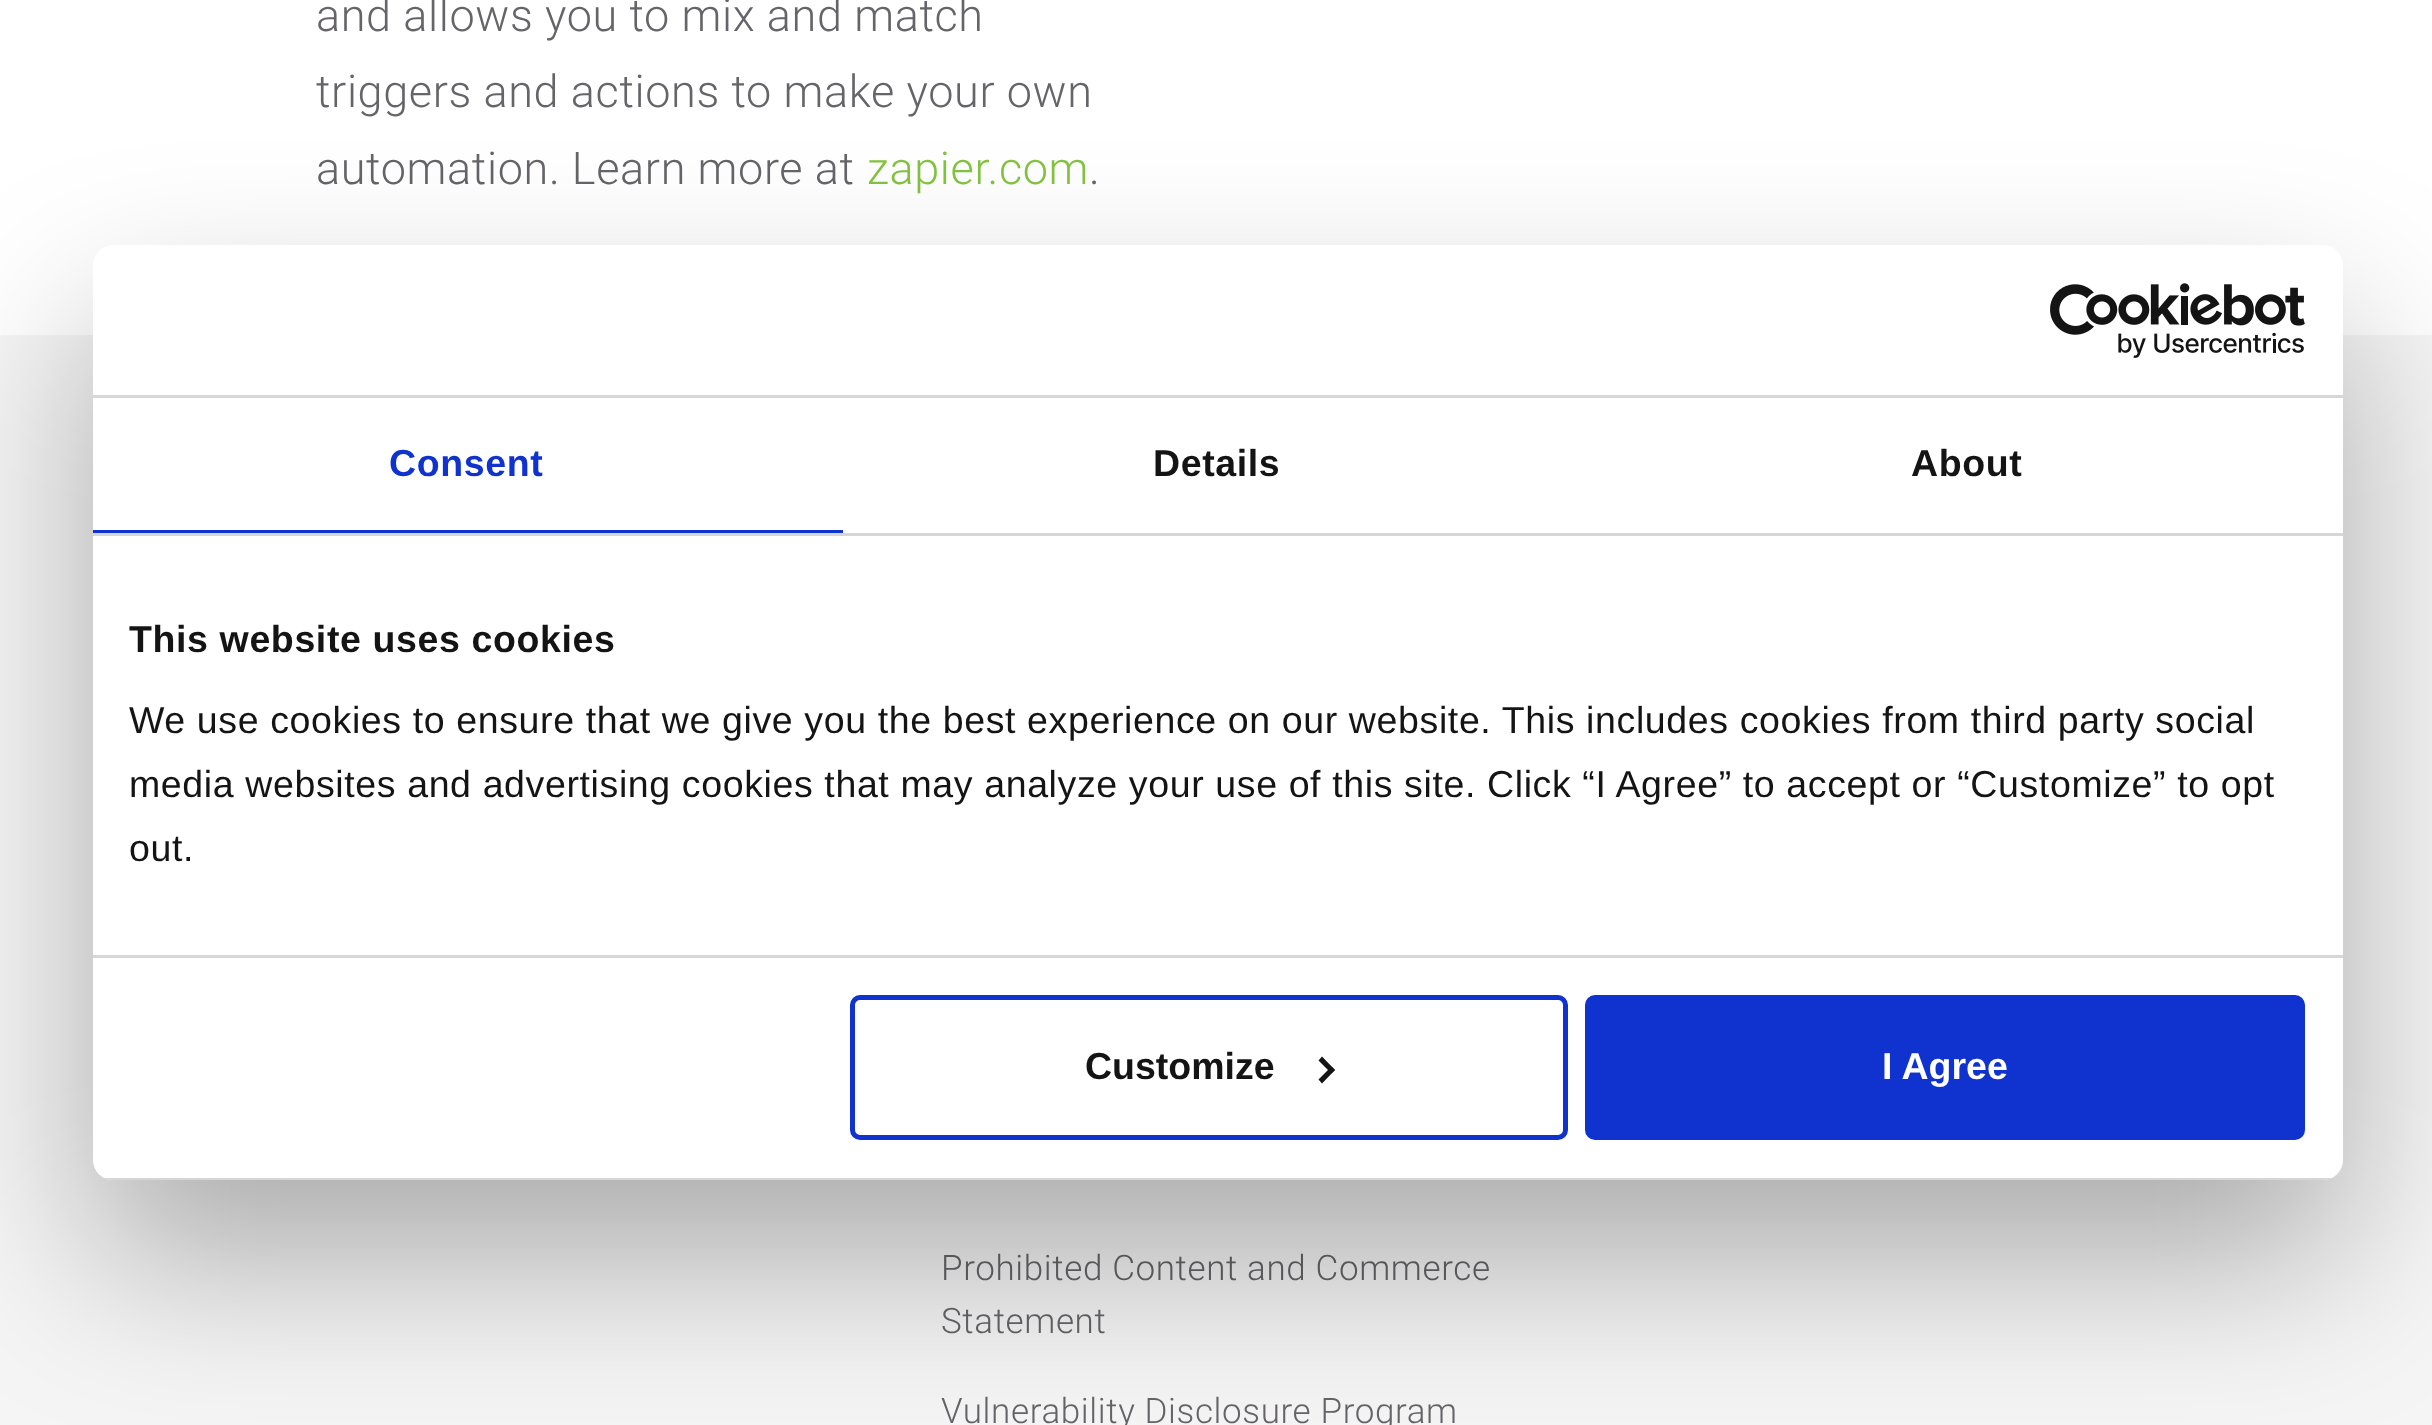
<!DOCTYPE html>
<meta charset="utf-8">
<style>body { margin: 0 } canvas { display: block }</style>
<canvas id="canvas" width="2432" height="1425"></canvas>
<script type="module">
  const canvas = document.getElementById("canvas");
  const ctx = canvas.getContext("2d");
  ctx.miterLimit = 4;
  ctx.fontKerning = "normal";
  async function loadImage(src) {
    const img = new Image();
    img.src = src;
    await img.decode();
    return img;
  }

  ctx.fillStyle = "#ffffff";
  ctx.fillRect(0, 0, 2432, 1425);
  ctx.letterSpacing = "0.62px";
  ctx.font = "300 45px Roboto";
  ctx.fillStyle = "#666468";
  ctx.fillText("and allows you to mix and match", 316, 31);
  ctx.fillText("triggers and actions to make your own", 316, 107);
  ctx.fillText("automation. Learn more at", 316, 184);
  ctx.fillStyle = "#84c340";
  ctx.fillText("zapier.com", 867, 184);
  ctx.fillStyle = "#666468";
  ctx.fillText(".", 1089, 184);
  ctx.fillStyle = "#f5f5f5";
  ctx.fillRect(0, 335, 2432, 1090);
  ctx.font = "300 35px Roboto";
  ctx.fillStyle = "#666468";
  ctx.fillText("Prohibited Content and Commerce", 941, 1280);
  ctx.fillText("Statement", 941, 1333);
  ctx.fillText("Vulnerability Disclosure Program", 941, 1423);
  ctx.fillStyle = "rgba(0, 0, 0, 0.3)";
  ctx.filter = "blur(85px)";
  ctx.beginPath();
  ctx.roundRect(93, 325, 2250, 935, 20);
  ctx.fill();
  ctx.filter = "none";
  ctx.fillStyle = "#ffffff";
  ctx.beginPath();
  ctx.roundRect(93, 245, 2250, 935, 20);
  ctx.fill();
  ctx.fillStyle = "#d6d6d6";
  ctx.fillRect(93, 395, 2250, 3);
  ctx.drawImage(await loadImage("img1.png"), 2050, 283, 255, 75);
  ctx.fillRect(93, 533, 2250, 3);
  ctx.fillStyle = "#1032cf";
  ctx.fillRect(93, 530, 750, 3);
  ctx.font = "bold 37.5px Liberation Sans";
  ctx.fillText("Consent", 389, 476);
  ctx.fillStyle = "#141414";
  ctx.fillText("Details", 1153, 476);
  ctx.fillText("About", 1911, 476);
  ctx.fillStyle = "#d6d6d6";
  ctx.fillRect(93, 955, 2250, 3);
  ctx.fillStyle = "#141414";
  ctx.fillText("This website uses cookies", 129, 652);
  ctx.font = "37.5px Liberation Sans";
  ctx.fillText("We use cookies to ensure that we give you the best experience on our website. This includes cookies from third party social", 129, 733);
  ctx.fillText("media websites and advertising cookies that may analyze your use of this site. Click “I Agree” to accept or “Customize” to opt", 129, 797);
  ctx.fillText("out.", 129, 861);
  ctx.save();
  ctx.beginPath();
  ctx.roundRect(93, 245, 2250, 935, 20);
  ctx.clip();
  ctx.fillStyle = "#d6d6d6";
  ctx.fillRect(104, 1178, 2228, 2);
  ctx.restore();
  ctx.beginPath();
  ctx.roundRect(852.5, 997.5, 713, 140, 7.5);
  ctx.strokeStyle = "#1032cf";
  ctx.lineWidth = 5;
  ctx.stroke();
  ctx.letterSpacing = "0px";
  ctx.font = "bold 37.5px Liberation Sans";
  ctx.fillText("Customize", 1085, 1079);
  ctx.beginPath();
  ctx.moveTo(1322, 1056.5);
  ctx.lineTo(1335, 1070);
  ctx.lineTo(1331.5, 1073.5);
  ctx.lineTo(1318.5, 1060.5);
  ctx.closePath();
  ctx.fill();
  ctx.beginPath();
  ctx.moveTo(1331.5, 1066.5);
  ctx.lineTo(1335, 1070);
  ctx.lineTo(1322, 1083.5);
  ctx.lineTo(1318.5, 1079.5);
  ctx.closePath();
  ctx.fill();
  ctx.fillStyle = "#1032cf";
  ctx.beginPath();
  ctx.roundRect(1587.5, 997.5, 715, 140, 7.5);
  ctx.fill();
  ctx.stroke();
  ctx.fillStyle = "#ffffff";
  ctx.fillText("I Agree", 1882, 1079);
</script>
